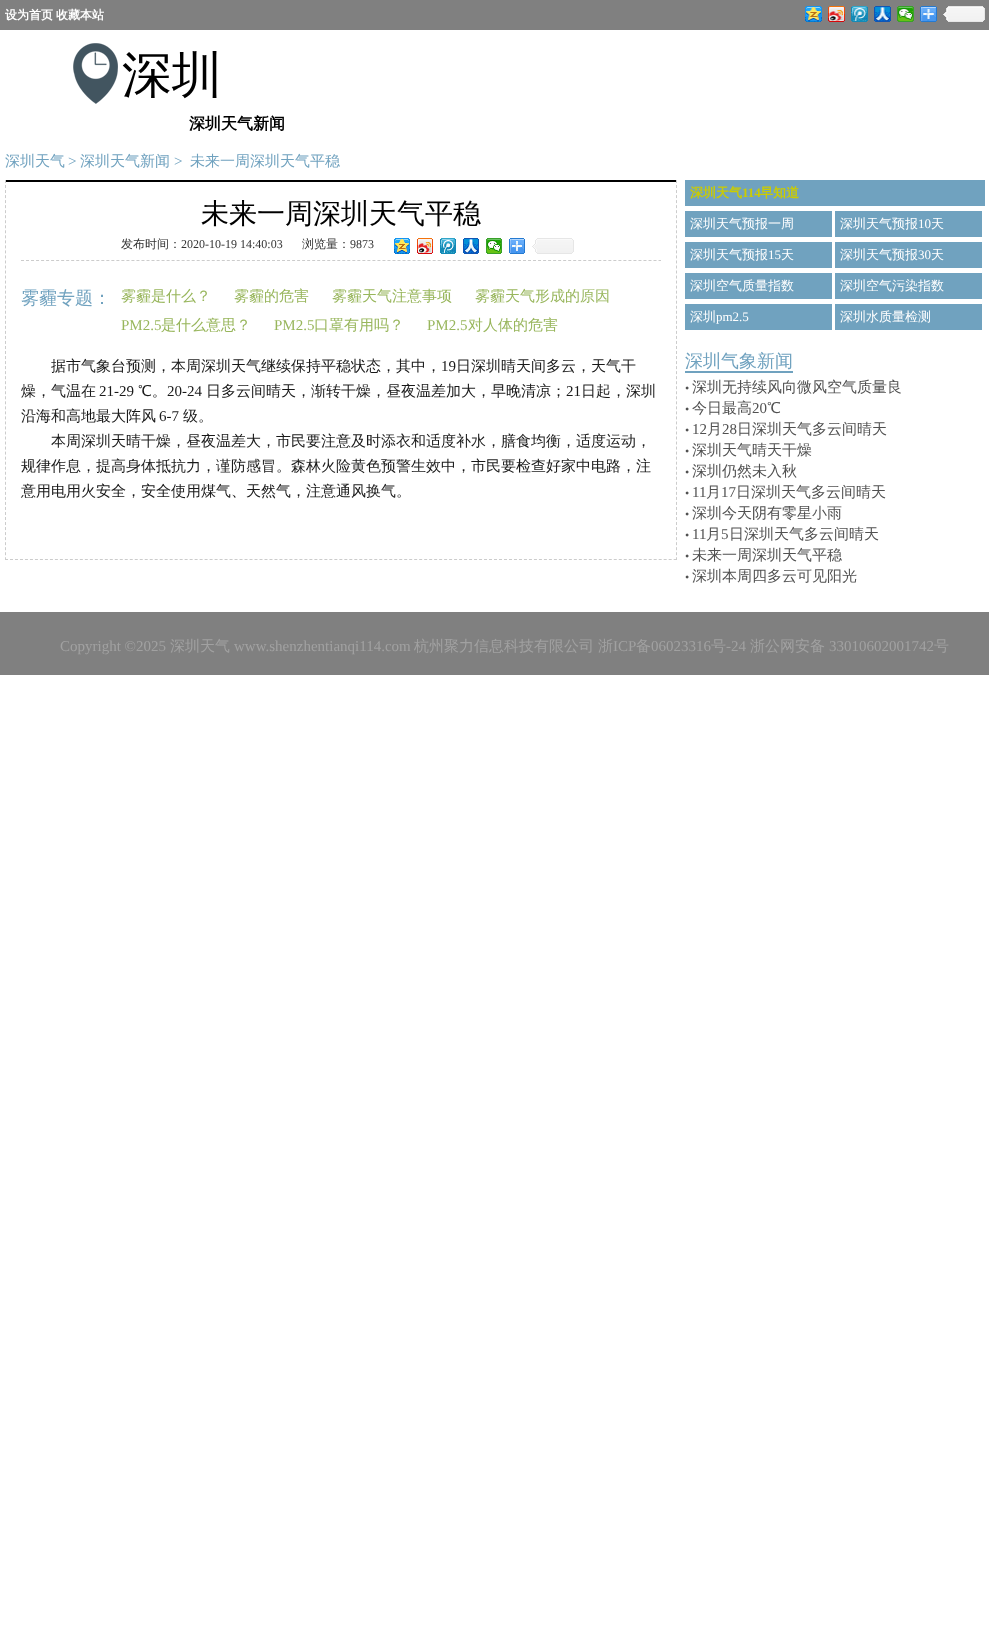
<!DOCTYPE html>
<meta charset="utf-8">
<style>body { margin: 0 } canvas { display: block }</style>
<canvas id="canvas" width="989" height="1633"></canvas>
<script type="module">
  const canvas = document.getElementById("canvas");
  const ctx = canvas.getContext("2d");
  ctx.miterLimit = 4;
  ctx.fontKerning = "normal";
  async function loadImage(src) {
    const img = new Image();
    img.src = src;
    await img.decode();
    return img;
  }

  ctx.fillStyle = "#ffffff";
  ctx.fillRect(0, 0, 989, 1633);
  ctx.fillStyle = "#808080";
  ctx.fillRect(0, 0, 989, 30);
  ctx.font = "bold 12px WenQuanYi Zen Hei";
  ctx.fillStyle = "#ffffff";
  ctx.fillText("设为首页", 5, 19);
  ctx.fillText("收藏本站", 56, 19);
  ctx.drawImage(await loadImage("img1.png"), 805, 6, 17, 16);
  ctx.drawImage(await loadImage("img2.png"), 828, 6, 17, 16);
  ctx.drawImage(await loadImage("img3.png"), 851, 6, 17, 16);
  ctx.drawImage(await loadImage("img4.png"), 874, 6, 17, 16);
  ctx.drawImage(await loadImage("img5.png"), 897, 6, 17, 16);
  ctx.drawImage(await loadImage("img6.png"), 920, 6, 17, 16);
  ctx.drawImage(await loadImage("img7.png"), 943, 6, 42, 16);
  ctx.drawImage(await loadImage("img8.png"), 73, 43, 45, 61);
  ctx.font = "500 50px WenQuanYi Zen Hei";
  ctx.fillStyle = "#000000";
  ctx.fillText("深圳", 122, 92);
  ctx.font = "bold 16px WenQuanYi Zen Hei";
  ctx.fillText("深圳天气新闻", 189, 129);
  ctx.font = "500 15px WenQuanYi Zen Hei";
  ctx.fillStyle = "#70a2bf";
  ctx.fillText("深圳天气", 5, 166);
  ctx.font = "15px Liberation Serif";
  ctx.fillText(">", 68, 166);
  ctx.font = "500 15px WenQuanYi Zen Hei";
  ctx.fillText("深圳天气新闻", 80, 166);
  ctx.font = "15px Liberation Serif";
  ctx.fillText(">", 174, 166);
  ctx.font = "500 15px WenQuanYi Zen Hei";
  ctx.fillText("未来一周深圳天气平稳", 190, 166);
  ctx.fillStyle = "#000000";
  ctx.beginPath();
  ctx.moveTo(5, 180);
  ctx.lineTo(677, 180);
  ctx.lineTo(676, 182);
  ctx.lineTo(6, 182);
  ctx.closePath();
  ctx.fill();
  ctx.beginPath();
  ctx.moveTo(676.5, 180);
  ctx.lineTo(676.5, 560);
  ctx.strokeStyle = "#cccccc";
  ctx.setLineDash([3, 2.03]);
  ctx.stroke();
  ctx.beginPath();
  ctx.moveTo(5, 559.5);
  ctx.lineTo(677, 559.5);
  ctx.setLineDash([3, 1.99]);
  ctx.stroke();
  ctx.beginPath();
  ctx.moveTo(5.5, 180);
  ctx.lineTo(5.5, 560);
  ctx.setLineDash([3, 2.03]);
  ctx.stroke();
  ctx.font = "500 28px WenQuanYi Zen Hei";
  ctx.fillText("未来一周深圳天气平稳", 201, 223);
  ctx.beginPath();
  ctx.moveTo(21, 260.5);
  ctx.lineTo(661, 260.5);
  ctx.setLineDash([3, 2.02]);
  ctx.stroke();
  ctx.font = "500 12px WenQuanYi Zen Hei";
  ctx.fillStyle = "#333333";
  ctx.fillText("发布时间：", 121, 248);
  ctx.font = "12px Liberation Serif";
  ctx.fillText("2020-10-19 14:40:03", 181, 248);
  ctx.font = "500 12px WenQuanYi Zen Hei";
  ctx.fillText("浏览量：", 302, 248);
  ctx.font = "12px Liberation Serif";
  ctx.fillText("9873", 350, 248);
  ctx.drawImage(await loadImage("img9.png"), 394, 238, 16, 16);
  ctx.drawImage(await loadImage("img10.png"), 417, 238, 16, 16);
  ctx.drawImage(await loadImage("img11.png"), 440, 238, 16, 16);
  ctx.drawImage(await loadImage("img12.png"), 463, 238, 16, 16);
  ctx.drawImage(await loadImage("img13.png"), 486, 238, 16, 16);
  ctx.drawImage(await loadImage("img14.png"), 509, 238, 16, 16);
  ctx.drawImage(await loadImage("img15.png"), 532, 238, 42, 16);
  ctx.font = "500 18px WenQuanYi Zen Hei";
  ctx.fillStyle = "#70a2bf";
  ctx.fillText("雾霾专题：", 21, 304);
  ctx.font = "500 15px WenQuanYi Zen Hei";
  ctx.fillStyle = "#98b65c";
  ctx.fillText("雾霾是什么？", 121, 301);
  ctx.fillText("雾霾的危害", 234, 301);
  ctx.fillText("雾霾天气注意事项", 332, 301);
  ctx.fillText("雾霾天气形成的原因", 475, 301);
  ctx.font = "15px Liberation Serif";
  ctx.fillText("PM2.5", 121, 330);
  ctx.font = "500 15px WenQuanYi Zen Hei";
  ctx.fillText("是什么意思？", 161, 330);
  ctx.font = "15px Liberation Serif";
  ctx.fillText("PM2.5", 274, 330);
  ctx.font = "500 15px WenQuanYi Zen Hei";
  ctx.fillText("口罩有用吗？", 314, 330);
  ctx.font = "15px Liberation Serif";
  ctx.fillText("PM2.5", 427, 330);
  ctx.font = "500 15px WenQuanYi Zen Hei";
  ctx.fillText("对人体的危害", 468, 330);
  ctx.fillStyle = "#191919";
  ctx.fillText("据市气象台预测，本周深圳天气继续保持平稳状态，其中，", 51, 371);
  ctx.font = "15px Liberation Serif";
  ctx.fillText("19", 441, 371);
  ctx.font = "500 15px WenQuanYi Zen Hei";
  ctx.fillText("日深圳晴天间多云，天气干", 456, 371);
  ctx.fillText("燥，气温在", 21, 396);
  ctx.font = "15px Liberation Serif";
  ctx.fillText("21-29", 99, 396);
  ctx.font = "500 15px WenQuanYi Zen Hei";
  ctx.fillText("℃。", 138, 396);
  ctx.font = "15px Liberation Serif";
  ctx.fillText("20-24", 167, 396);
  ctx.font = "500 15px WenQuanYi Zen Hei";
  ctx.fillText("日多云间晴天，渐转干燥，昼夜温差加大，早晚清凉；", 206, 396);
  ctx.font = "15px Liberation Serif";
  ctx.fillText("21", 566, 396);
  ctx.font = "500 15px WenQuanYi Zen Hei";
  ctx.fillText("日起，深圳", 581, 396);
  ctx.fillText("沿海和高地最大阵风", 21, 421);
  ctx.font = "15px Liberation Serif";
  ctx.fillText("6-7", 159, 421);
  ctx.font = "500 15px WenQuanYi Zen Hei";
  ctx.fillText("级。", 183, 421);
  ctx.fillText("本周深圳天晴干燥，昼夜温差大，市民要注意及时添衣和适度补水，膳食均衡，适度运动，", 51, 446);
  ctx.fillText("规律作息，提高身体抵抗力，谨防感冒。森林火险黄色预警生效中，市民要检查好家中电路，注", 21, 471);
  ctx.fillText("意用电用火安全，安全使用煤气、天然气，注意通风换气。", 21, 496);
  ctx.fillStyle = "#70a2bf";
  ctx.fillRect(685, 180, 300, 26);
  ctx.font = "bold 13px WenQuanYi Zen Hei";
  ctx.fillStyle = "#cccc00";
  ctx.fillText("深圳天气", 690, 197);
  ctx.font = "bold 13px Liberation Serif";
  ctx.fillText("114", 742, 197);
  ctx.font = "bold 13px WenQuanYi Zen Hei";
  ctx.fillText("早知道", 760, 197);
  ctx.fillStyle = "#70a2bf";
  ctx.fillRect(685, 211, 147, 26);
  ctx.font = "500 13px WenQuanYi Zen Hei";
  ctx.fillStyle = "#ffffff";
  ctx.fillText("深圳天气预报一周", 690, 228);
  ctx.fillStyle = "#70a2bf";
  ctx.fillRect(835, 211, 147, 26);
  ctx.fillStyle = "#ffffff";
  ctx.fillText("深圳天气预报", 840, 228);
  ctx.font = "13px Liberation Serif";
  ctx.fillText("10", 918, 228);
  ctx.font = "500 13px WenQuanYi Zen Hei";
  ctx.fillText("天", 931, 228);
  ctx.fillStyle = "#70a2bf";
  ctx.fillRect(685, 242, 147, 26);
  ctx.fillStyle = "#ffffff";
  ctx.fillText("深圳天气预报", 690, 259);
  ctx.font = "13px Liberation Serif";
  ctx.fillText("15", 768, 259);
  ctx.font = "500 13px WenQuanYi Zen Hei";
  ctx.fillText("天", 781, 259);
  ctx.fillStyle = "#70a2bf";
  ctx.fillRect(835, 242, 147, 26);
  ctx.fillStyle = "#ffffff";
  ctx.fillText("深圳天气预报", 840, 259);
  ctx.font = "13px Liberation Serif";
  ctx.fillText("30", 918, 259);
  ctx.font = "500 13px WenQuanYi Zen Hei";
  ctx.fillText("天", 931, 259);
  ctx.fillStyle = "#70a2bf";
  ctx.fillRect(685, 273, 147, 26);
  ctx.fillStyle = "#ffffff";
  ctx.fillText("深圳空气质量指数", 690, 290);
  ctx.fillStyle = "#70a2bf";
  ctx.fillRect(835, 273, 147, 26);
  ctx.fillStyle = "#ffffff";
  ctx.fillText("深圳空气污染指数", 840, 290);
  ctx.fillStyle = "#70a2bf";
  ctx.fillRect(685, 304, 147, 26);
  ctx.fillStyle = "#ffffff";
  ctx.fillText("深圳", 690, 321);
  ctx.font = "13px Liberation Serif";
  ctx.fillText("pm2.5", 716, 321);
  ctx.fillStyle = "#70a2bf";
  ctx.fillRect(835, 304, 147, 26);
  ctx.font = "500 13px WenQuanYi Zen Hei";
  ctx.fillStyle = "#ffffff";
  ctx.fillText("深圳水质量检测", 840, 321);
  ctx.font = "500 18px WenQuanYi Zen Hei";
  ctx.fillStyle = "#70a2bf";
  ctx.fillText("深圳气象新闻", 685, 367);
  ctx.fillRect(685, 371, 108, 2);
  ctx.font = "12px Liberation Serif";
  ctx.fillStyle = "#515151";
  ctx.fillText("•", 685, 392);
  ctx.font = "500 15px WenQuanYi Zen Hei";
  ctx.fillText("深圳无持续风向微风空气质量良", 692, 392);
  ctx.font = "12px Liberation Serif";
  ctx.fillText("•", 685, 413);
  ctx.font = "500 15px WenQuanYi Zen Hei";
  ctx.fillText("今日最高", 692, 413);
  ctx.font = "15px Liberation Serif";
  ctx.fillText("20", 752, 413);
  ctx.font = "500 15px WenQuanYi Zen Hei";
  ctx.fillText("℃", 767, 413);
  ctx.font = "12px Liberation Serif";
  ctx.fillText("•", 685, 434);
  ctx.font = "15px Liberation Serif";
  ctx.fillText("12", 692, 434);
  ctx.font = "500 15px WenQuanYi Zen Hei";
  ctx.fillText("月", 707, 434);
  ctx.font = "15px Liberation Serif";
  ctx.fillText("28", 722, 434);
  ctx.font = "500 15px WenQuanYi Zen Hei";
  ctx.fillText("日深圳天气多云间晴天", 737, 434);
  ctx.font = "12px Liberation Serif";
  ctx.fillText("•", 685, 455);
  ctx.font = "500 15px WenQuanYi Zen Hei";
  ctx.fillText("深圳天气晴天干燥", 692, 455);
  ctx.font = "12px Liberation Serif";
  ctx.fillText("•", 685, 476);
  ctx.font = "500 15px WenQuanYi Zen Hei";
  ctx.fillText("深圳仍然未入秋", 692, 476);
  ctx.font = "12px Liberation Serif";
  ctx.fillText("•", 685, 497);
  ctx.font = "15px Liberation Serif";
  ctx.fillText("11", 692, 497);
  ctx.font = "500 15px WenQuanYi Zen Hei";
  ctx.fillText("月", 706, 497);
  ctx.font = "15px Liberation Serif";
  ctx.fillText("17", 721, 497);
  ctx.font = "500 15px WenQuanYi Zen Hei";
  ctx.fillText("日深圳天气多云间晴天", 736, 497);
  ctx.font = "12px Liberation Serif";
  ctx.fillText("•", 685, 518);
  ctx.font = "500 15px WenQuanYi Zen Hei";
  ctx.fillText("深圳今天阴有零星小雨", 692, 518);
  ctx.font = "12px Liberation Serif";
  ctx.fillText("•", 685, 539);
  ctx.font = "15px Liberation Serif";
  ctx.fillText("11", 692, 539);
  ctx.font = "500 15px WenQuanYi Zen Hei";
  ctx.fillText("月", 706, 539);
  ctx.font = "15px Liberation Serif";
  ctx.fillText("5", 721, 539);
  ctx.font = "500 15px WenQuanYi Zen Hei";
  ctx.fillText("日深圳天气多云间晴天", 729, 539);
  ctx.font = "12px Liberation Serif";
  ctx.fillText("•", 685, 560);
  ctx.font = "500 15px WenQuanYi Zen Hei";
  ctx.fillText("未来一周深圳天气平稳", 692, 560);
  ctx.font = "12px Liberation Serif";
  ctx.fillText("•", 685, 581);
  ctx.font = "500 15px WenQuanYi Zen Hei";
  ctx.fillText("深圳本周四多云可见阳光", 692, 581);
  ctx.fillStyle = "#808080";
  ctx.fillRect(0, 612, 989, 63);
  ctx.font = "15px Liberation Serif";
  ctx.fillStyle = "#a1a1a1";
  ctx.fillText("Copyright ©2025", 60, 651);
  ctx.font = "500 15px WenQuanYi Zen Hei";
  ctx.fillText("深圳天气", 170, 651);
  ctx.font = "15px Liberation Serif";
  ctx.fillText("www.shenzhentianqi114.com", 234, 651);
  ctx.font = "500 15px WenQuanYi Zen Hei";
  ctx.fillText("杭州聚力信息科技有限公司", 414, 651);
  ctx.fillText("浙", 598, 651);
  ctx.font = "15px Liberation Serif";
  ctx.fillText("ICP", 613, 651);
  ctx.font = "500 15px WenQuanYi Zen Hei";
  ctx.fillText("备", 636, 651);
  ctx.font = "15px Liberation Serif";
  ctx.fillText("06023316", 651, 651);
  ctx.font = "500 15px WenQuanYi Zen Hei";
  ctx.fillText("号", 711, 651);
  ctx.font = "15px Liberation Serif";
  ctx.fillText("-24", 726, 651);
  ctx.font = "500 15px WenQuanYi Zen Hei";
  ctx.fillText("浙公网安备", 750, 651);
  ctx.font = "15px Liberation Serif";
  ctx.fillText("33010602001742", 829, 651);
  ctx.font = "500 15px WenQuanYi Zen Hei";
  ctx.fillText("号", 934, 651);
</script>
